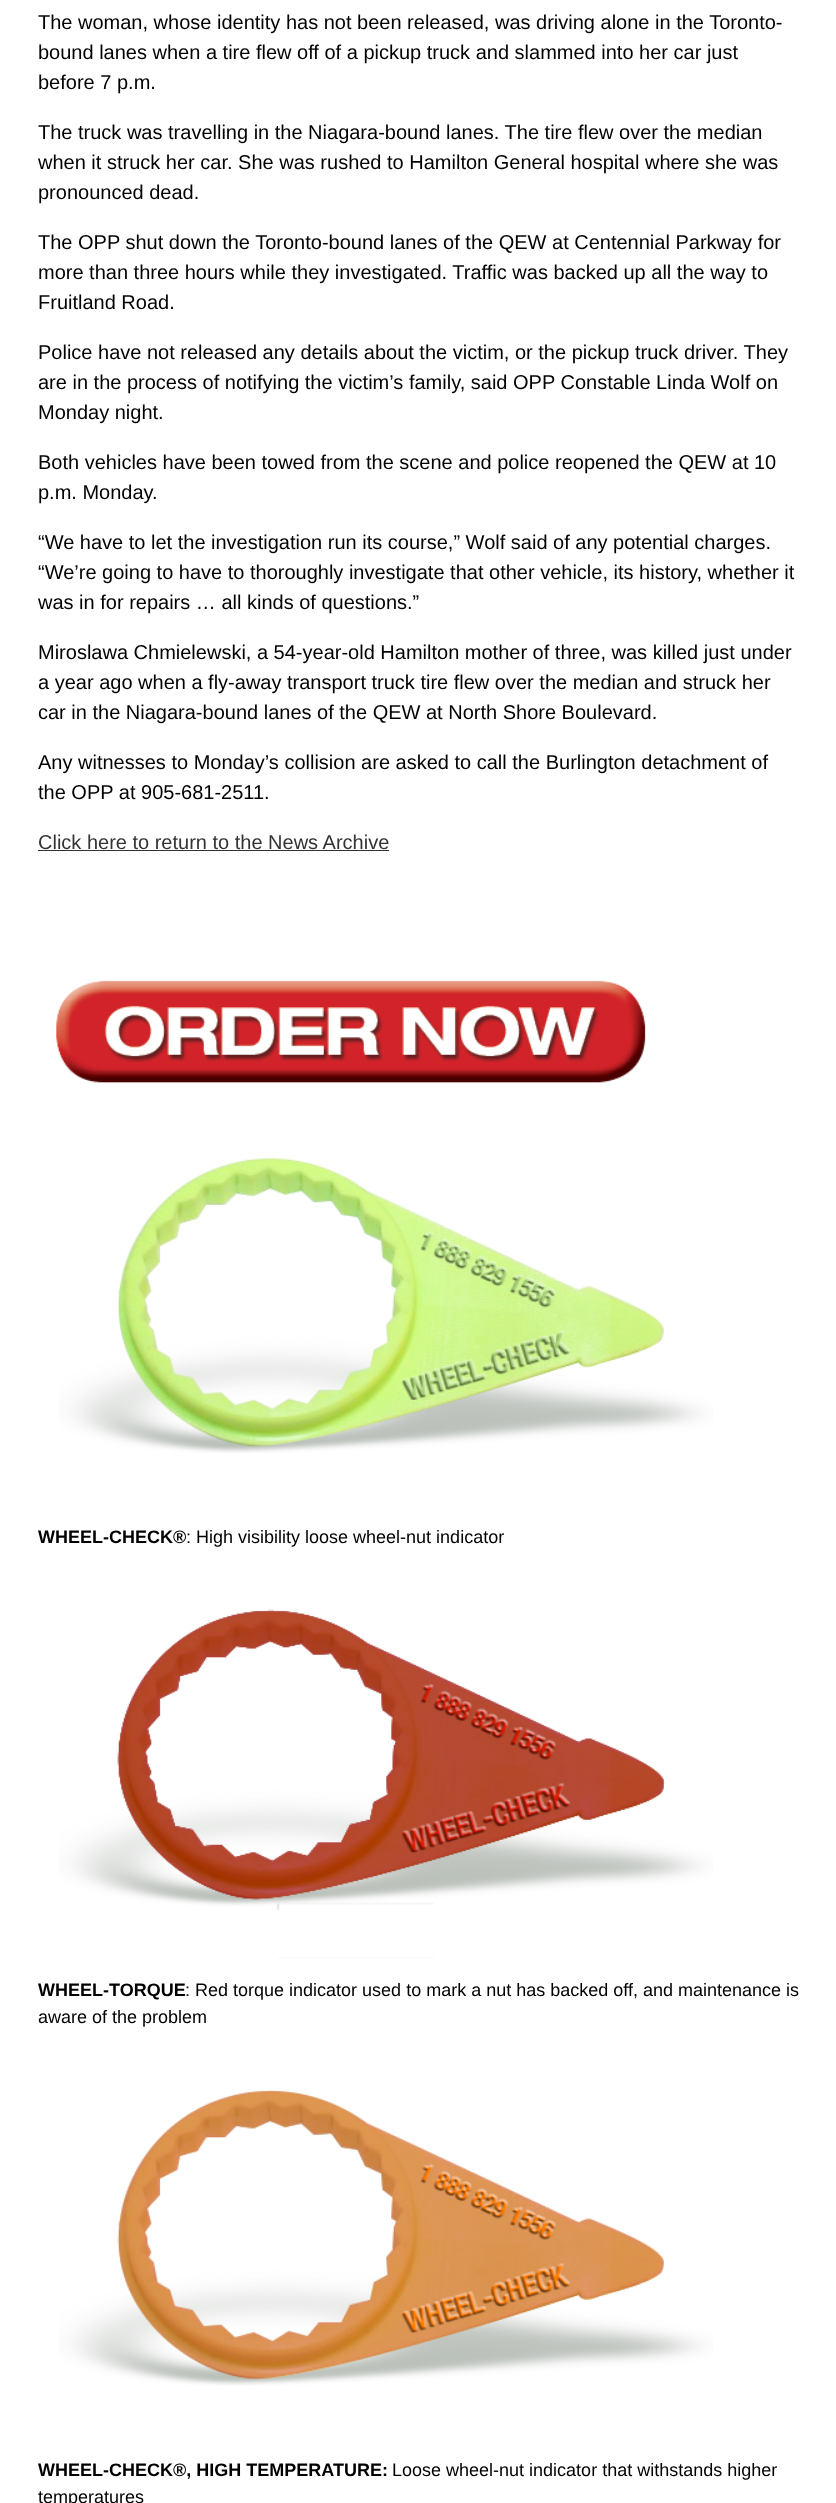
<!DOCTYPE html>
<meta charset="utf-8">
<style>body { margin: 0 } canvas { display: block }</style>
<canvas id="canvas" width="836" height="2503"></canvas>
<script type="module">
  const canvas = document.getElementById("canvas");
  const ctx = canvas.getContext("2d");
  ctx.miterLimit = 4;
  ctx.fontKerning = "normal";
  async function loadImage(src) {
    const img = new Image();
    img.src = src;
    await img.decode();
    return img;
  }

  ctx.fillStyle = "#ffffff";
  ctx.fillRect(0, 0, 836, 2503);
  ctx.font = "20px Liberation Sans";
  ctx.fillStyle = "#000000";
  ctx.fillText("The woman, whose identity has not been released, was driving alone in the Toronto-", 38, 29);
  ctx.fillText("bound lanes when a tire flew off of a pickup truck and slammed into her car just", 38, 59);
  ctx.fillText("before 7 p.m.", 38, 89);
  ctx.fillText("The truck was travelling in the Niagara-bound lanes. The tire flew over the median", 38, 139);
  ctx.fillText("when it struck her car. She was rushed to Hamilton General hospital where she was", 38, 169);
  ctx.fillText("pronounced dead.", 38, 199);
  ctx.fillText("The OPP shut down the Toronto-bound lanes of the QEW at Centennial Parkway for", 38, 249);
  ctx.fillText("more than three hours while they investigated. Traffic was backed up all the way to", 38, 279);
  ctx.fillText("Fruitland Road.", 38, 309);
  ctx.fillText("Police have not released any details about the victim, or the pickup truck driver. They", 38, 359);
  ctx.fillText("are in the process of notifying the victim’s family, said OPP Constable Linda Wolf on", 38, 389);
  ctx.fillText("Monday night.", 38, 419);
  ctx.fillText("Both vehicles have been towed from the scene and police reopened the QEW at 10", 38, 469);
  ctx.fillText("p.m. Monday.", 38, 499);
  ctx.fillText("“We have to let the investigation run its course,” Wolf said of any potential charges.", 38, 549);
  ctx.fillText("“We’re going to have to thoroughly investigate that other vehicle, its history, whether it", 38, 579);
  ctx.fillText("was in for repairs … all kinds of questions.”", 38, 609);
  ctx.fillText("Miroslawa Chmielewski, a 54-year-old Hamilton mother of three, was killed just under", 38, 659);
  ctx.fillText("a year ago when a fly-away transport truck tire flew over the median and struck her", 38, 689);
  ctx.fillText("car in the Niagara-bound lanes of the QEW at North Shore Boulevard.", 38, 719);
  ctx.fillText("Any witnesses to Monday’s collision are asked to call the Burlington detachment of", 38, 769);
  ctx.fillText("the OPP at 905-681-2511.", 38, 799);
  ctx.fillStyle = "#333333";
  ctx.fillText("Click here to return to the News Archive", 38, 849);
  ctx.fillRect(38, 850, 351, 1);
  ctx.drawImage(await loadImage("img1.png"), 56, 980, 590, 103);
  ctx.drawImage(await loadImage("img2.png"), 59, 1158, 654, 295);
  ctx.font = "bold 18px Liberation Sans";
  ctx.fillStyle = "#000000";
  ctx.fillText("WHEEL-CHECK®", 38, 1543);
  ctx.font = "18px Liberation Sans";
  ctx.fillText(": High visibility loose wheel-nut indicator", 186, 1543);
  ctx.drawImage(await loadImage("img3.png"), 59, 1609, 654, 350);
  ctx.font = "bold 18px Liberation Sans";
  ctx.fillText("WHEEL-TORQUE", 38, 1996);
  ctx.font = "18px Liberation Sans";
  ctx.fillText(": Red torque indicator used to mark a nut has backed off, and", 185, 1996);
  ctx.fillText("maintenance is", 678, 1996);
  ctx.fillText("aware of the problem", 38, 2023);
  ctx.drawImage(await loadImage("img4.png"), 59, 2090, 654, 296);
  ctx.font = "bold 18px Liberation Sans";
  ctx.fillText("WHEEL-CHECK®, HIGH TEMPERATURE:", 38, 2476);
  ctx.font = "18px Liberation Sans";
  ctx.fillText("Loose wheel-nut indicator that withstands higher", 392, 2476);
  ctx.fillText("temperatures", 38, 2503);
</script>
